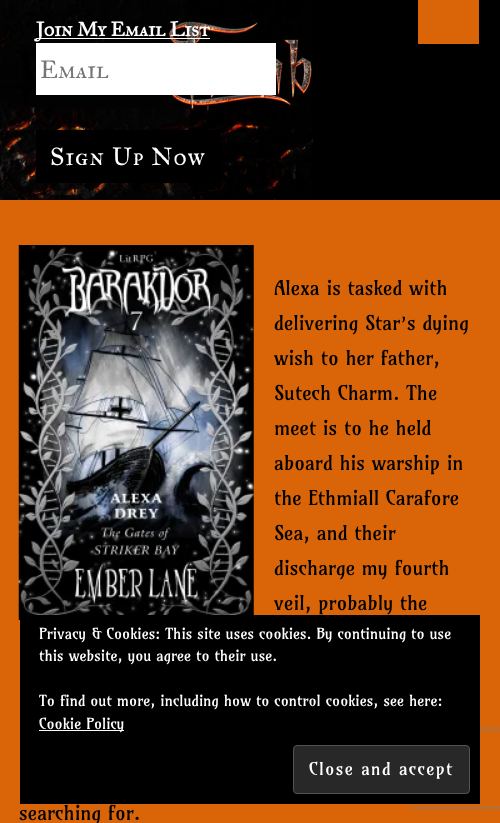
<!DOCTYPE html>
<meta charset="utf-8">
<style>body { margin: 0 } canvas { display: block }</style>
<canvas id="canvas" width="500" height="823"></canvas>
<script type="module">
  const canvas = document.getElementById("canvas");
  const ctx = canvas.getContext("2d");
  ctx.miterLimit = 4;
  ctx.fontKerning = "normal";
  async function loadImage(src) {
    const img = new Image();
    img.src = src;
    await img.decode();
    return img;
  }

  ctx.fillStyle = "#da6508";
  ctx.fillRect(0, 0, 500, 823);
  ctx.fillStyle = "#000000";
  ctx.fillRect(312, 0, 188, 200);
  ctx.drawImage(await loadImage("img1.png"), 0, 0, 313, 200);
  ctx.fillStyle = "#ffffff";
  ctx.fillRect(36, 38, 174, 1);
  ctx.font = "bold 20px IM FELL Great Primer SC";
  ctx.fillText("Join My Email List", 36, 36);
  ctx.fillRect(36, 43, 240, 52);
  ctx.font = "25px IM FELL Great Primer SC";
  ctx.fillStyle = "#757575";
  ctx.fillText("Email", 40, 78);
  ctx.fillStyle = "#000000";
  ctx.fillRect(36, 130, 184, 53);
  ctx.letterSpacing = "1.25px";
  ctx.fillStyle = "#ffffff";
  ctx.fillText("Sign Up Now", 50, 165);
  ctx.fillStyle = "#da6508";
  ctx.fillRect(418, 0, 61, 44);
  ctx.drawImage(await loadImage("img2.png"), 18, 245, 236, 375);
  ctx.letterSpacing = "0px";
  ctx.font = "20px Amarante";
  ctx.fillStyle = "#000000";
  ctx.fillText("Alexa is tasked with", 274, 295);
  ctx.fillText("delivering Star’s dying", 274, 330);
  ctx.fillText("wish to her father,", 274, 365);
  ctx.fillText("Sutech Charm. The", 274, 400);
  ctx.fillText("meet is to he held", 274, 435);
  ctx.fillText("aboard his warship in", 274, 470);
  ctx.fillText("the Ethmiall Carafore", 274, 505);
  ctx.fillText("Sea, and their", 274, 540);
  ctx.fillText("discharge my fourth", 274, 575);
  ctx.fillText("veil, probably the", 274, 610);
  ctx.fillText("searching for.", 19, 820);
  ctx.save();
  ctx.beginPath();
  ctx.moveTo(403, 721);
  ctx.lineTo(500, 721);
  ctx.lineTo(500, 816);
  ctx.lineTo(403, 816);
  ctx.closePath();
  ctx.moveTo(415.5, 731);
  ctx.lineTo(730.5, 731);
  ctx.bezierCurveTo(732, 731, 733, 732, 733, 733.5);
  ctx.lineTo(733, 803.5);
  ctx.bezierCurveTo(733, 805, 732, 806, 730.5, 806);
  ctx.lineTo(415.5, 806);
  ctx.bezierCurveTo(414, 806, 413, 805, 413, 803.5);
  ctx.lineTo(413, 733.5);
  ctx.bezierCurveTo(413, 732, 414, 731, 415.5, 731);
  ctx.closePath();
  ctx.clip("evenodd");
  ctx.fillStyle = "#808080";
  ctx.filter = "blur(3px)";
  ctx.beginPath();
  ctx.roundRect(413, 731, 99, 75, 2.5);
  ctx.fill();
  ctx.filter = "none";
  ctx.restore();
  ctx.fillRect(20, 615, 460, 189);
  ctx.font = "15px Amarante";
  ctx.fillStyle = "#ffffff";
  ctx.fillText("Privacy & Cookies: This site uses cookies. By continuing to use", 39, 639);
  ctx.fillText("this website, you agree to their use.", 39, 661);
  ctx.fillText("To find out more, including how to control cookies, see here:", 39, 706);
  ctx.fillRect(39, 730, 85, 1);
  ctx.fillText("Cookie Policy", 39, 729);
  ctx.fillStyle = "#282828";
  ctx.beginPath();
  ctx.roundRect(293.5, 745.5, 176, 48, 3.5);
  ctx.fill();
  ctx.strokeStyle = "#535353";
  ctx.stroke();
  ctx.letterSpacing = "1.25px";
  ctx.font = "17.5px Amarante";
  ctx.fillStyle = "#ffffff";
  ctx.fillText("Close and accept", 309, 775);
</script>
